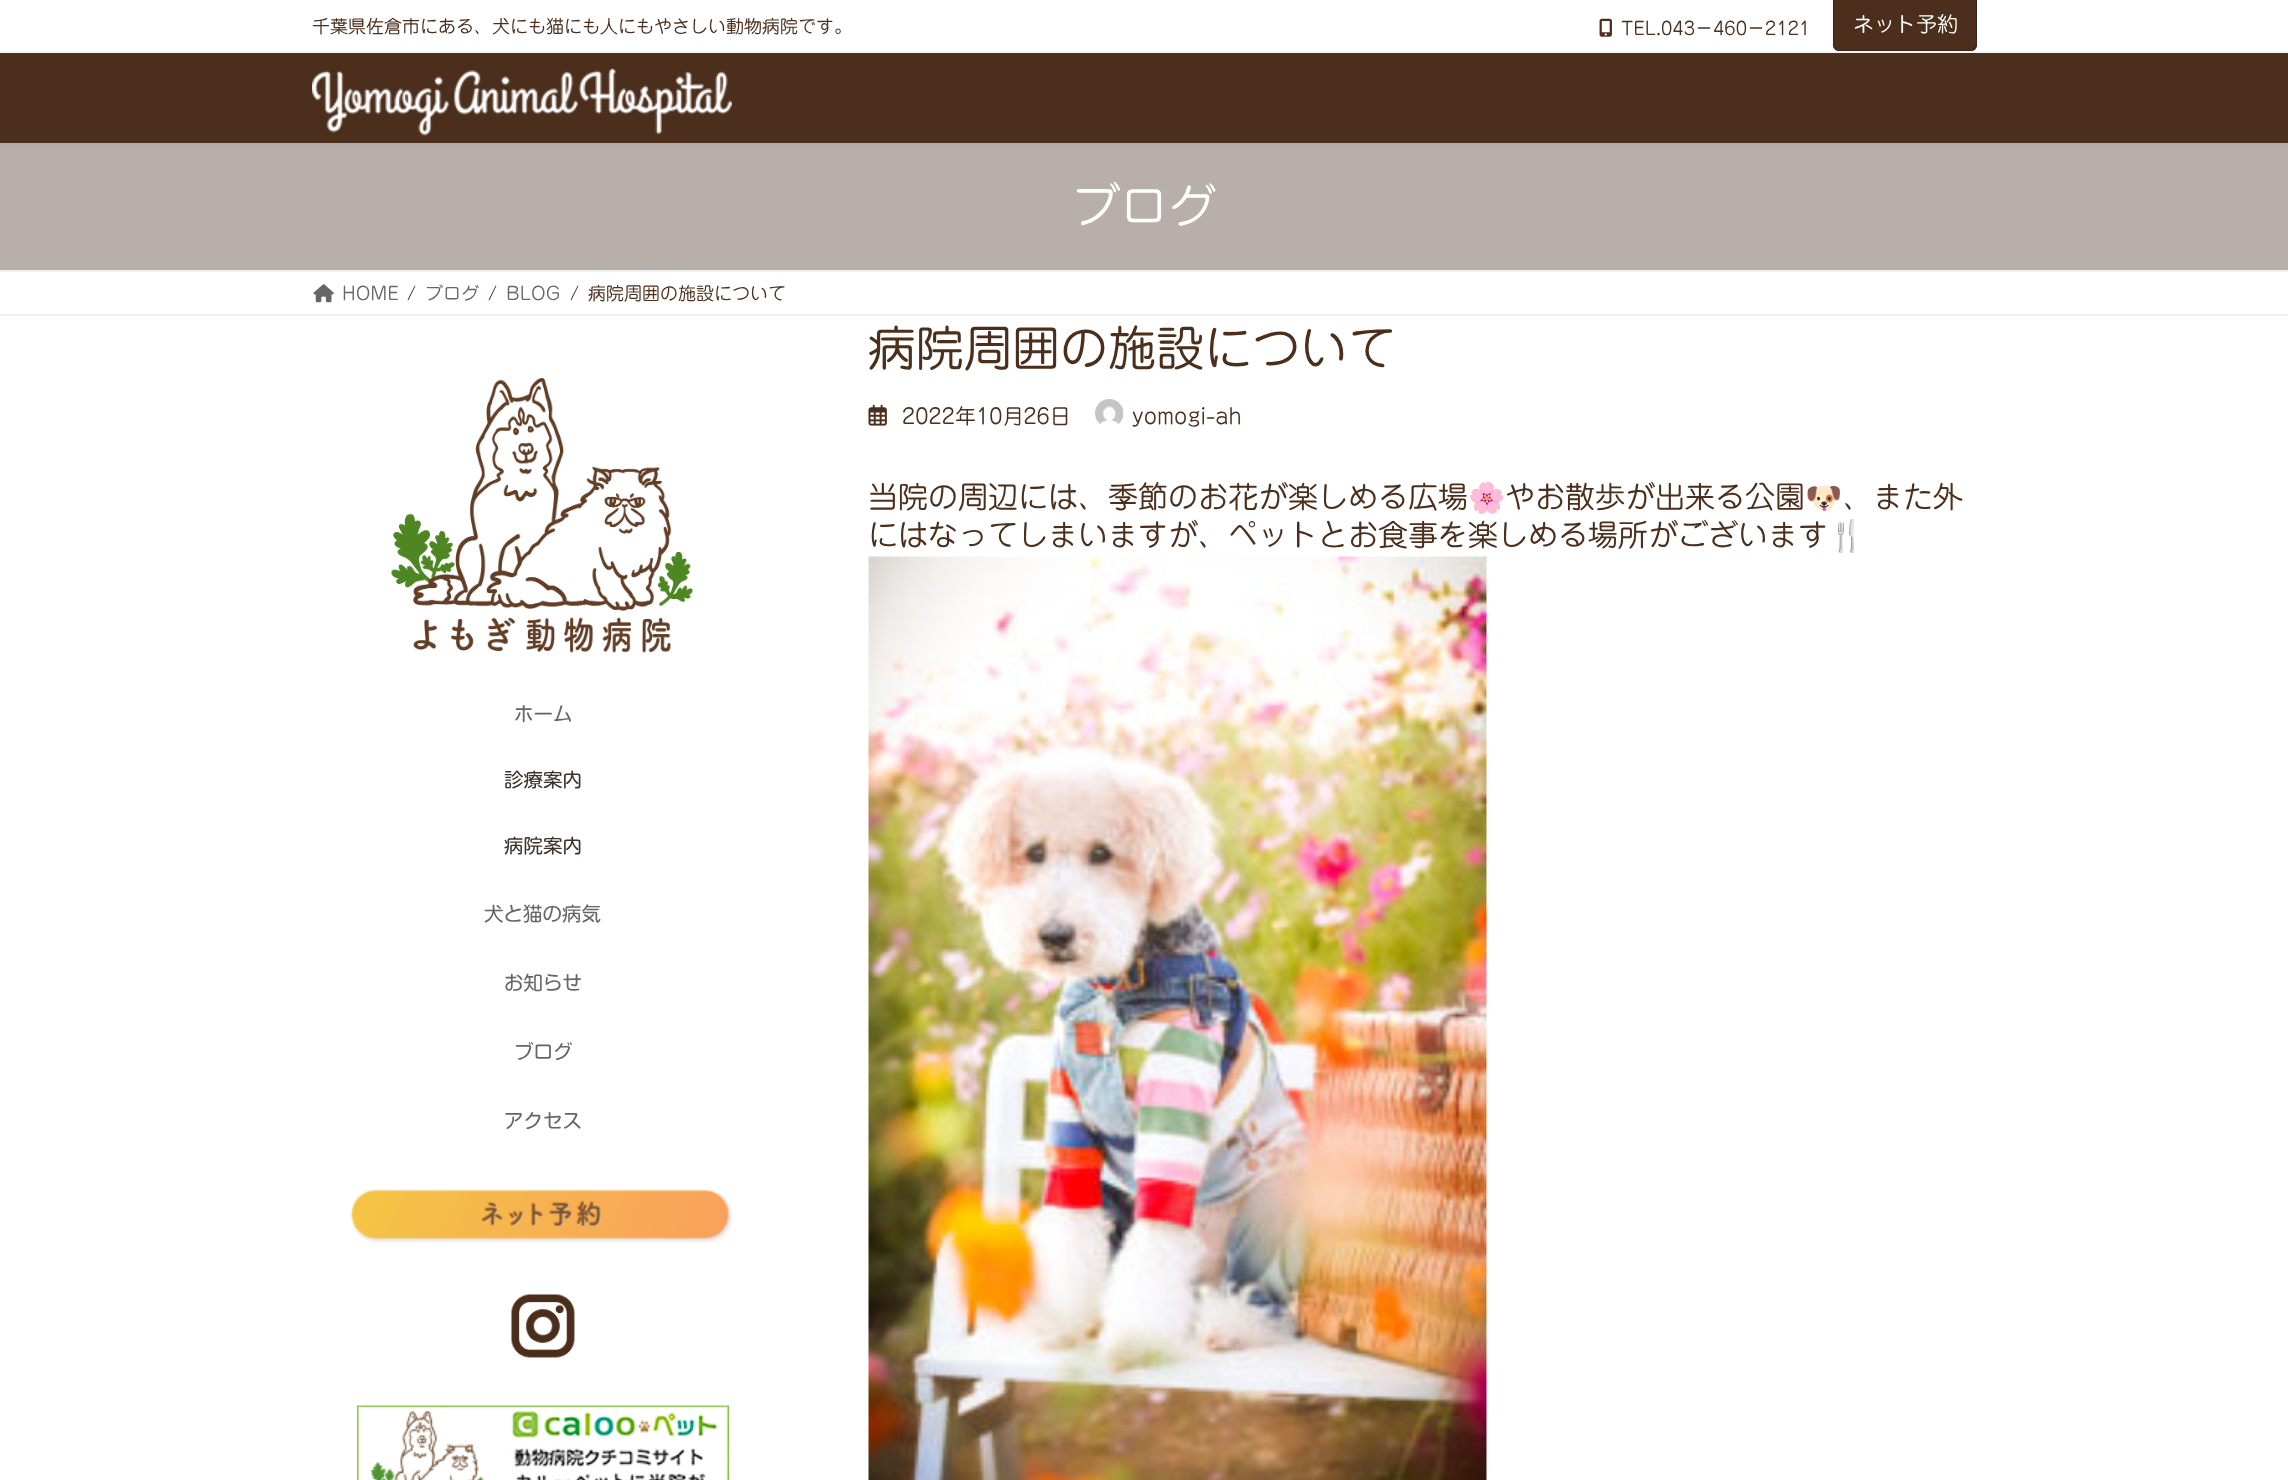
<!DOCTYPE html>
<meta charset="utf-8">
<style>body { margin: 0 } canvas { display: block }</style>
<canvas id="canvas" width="2288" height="1480"></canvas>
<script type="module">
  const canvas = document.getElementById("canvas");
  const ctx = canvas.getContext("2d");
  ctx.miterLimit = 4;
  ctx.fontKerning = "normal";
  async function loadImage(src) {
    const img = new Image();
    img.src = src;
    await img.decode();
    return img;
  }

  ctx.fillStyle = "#ffffff";
  ctx.fillRect(0, 0, 2288, 1480);
  ctx.fillStyle = "#b8afaa";
  ctx.fillRect(0, 143, 2288, 127);
  ctx.fillStyle = "rgba(0, 0, 0, 0.05)";
  ctx.filter = "blur(2px)";
  ctx.beginPath();
  ctx.rect(0, -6, 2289, 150);
  ctx.fill();
  ctx.filter = "none";
  ctx.fillStyle = "#4b2e1b";
  ctx.fillRect(0, 53, 2288, 90);
  ctx.fillStyle = "#ffffff";
  ctx.fillRect(0, 0, 2288, 51);
  ctx.fillStyle = "#f5f5f5";
  ctx.fillRect(0, 51, 2288, 2);
  ctx.font = "18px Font";
  ctx.fillStyle = "#4b2e1b";
  ctx.fillText("千葉県佐倉市にある、犬にも猫にも人にもやさしい動物病院です。", 312, 33);
  ctx.drawImage(await loadImage("img1.png"), 1599, 18, 13, 19);
  ctx.fillText("TEL.043－460－2121", 1621, 35);
  ctx.beginPath();
  ctx.roundRect(1833, 0, 144, 51, [0, 0, 6, 6]);
  ctx.fill();
  ctx.fillStyle = "#3c2516";
  ctx.beginPath();
  ctx.moveTo(1833, 0);
  ctx.lineTo(1977, 0);
  ctx.lineTo(1977, 45);
  ctx.bezierCurveTo(1977, 48, 1974, 51, 1971, 51);
  ctx.lineTo(1839, 51);
  ctx.bezierCurveTo(1836, 51, 1833, 48, 1833, 45);
  ctx.closePath();
  ctx.moveTo(1834, 0);
  ctx.lineTo(1976, 0);
  ctx.lineTo(1976, 45);
  ctx.bezierCurveTo(1976, 47, 1973, 50, 1971, 50);
  ctx.lineTo(1839, 50);
  ctx.bezierCurveTo(1837, 50, 1834, 47, 1834, 45);
  ctx.closePath();
  ctx.fill("evenodd");
  ctx.font = "21px Font";
  ctx.fillStyle = "#ffffff";
  ctx.fillText("ネット予約", 1853, 32);
  ctx.drawImage(await loadImage("img2.png"), 312, 68, 420, 68);
  ctx.font = "48px Font";
  ctx.fillText("ブログ", 1072, 224);
  ctx.fillStyle = "#f0f0f0";
  ctx.fillRect(0, 270, 2288, 2);
  ctx.fillRect(0, 314, 2288, 2);
  ctx.drawImage(await loadImage("img3.png"), 313, 284, 21, 19);
  ctx.font = "18px Font";
  ctx.fillStyle = "#666666";
  ctx.fillText("HOME", 342, 300);
  ctx.fillStyle = "#4b2e1b";
  ctx.fillText("/", 407, 300);
  ctx.fillStyle = "#666666";
  ctx.fillText("ブログ", 425, 300);
  ctx.fillStyle = "#4b2e1b";
  ctx.fillText("/", 488, 300);
  ctx.fillStyle = "#666666";
  ctx.fillText("BLOG", 506, 300);
  ctx.fillStyle = "#4b2e1b";
  ctx.fillText("/", 570, 300);
  ctx.fillText("病院周囲の施設について", 588, 300);
  ctx.font = "48px Font";
  ctx.fillText("病院周囲の施設について", 868, 366);
  ctx.drawImage(await loadImage("img4.png"), 868, 404, 19, 22);
  ctx.font = "21px Font";
  ctx.fillText("2022年10月26日", 902, 424);
  ctx.drawImage(await loadImage("img5.png"), 1095, 399, 29, 25);
  ctx.fillText("yomogi-ah", 1132, 424);
  ctx.font = "30px Font";
  ctx.fillText("当院の周辺には、季節のお花が楽しめる広場", 868, 508);
  ctx.font = "30px Noto Color Emoji";
  ctx.fillText("🌸", 1468, 508);
  ctx.font = "30px Font";
  ctx.fillText("やお散歩が出来る公園", 1505, 508);
  ctx.font = "30px Noto Color Emoji";
  ctx.fillText("🐶", 1805, 508);
  ctx.font = "30px Font";
  ctx.fillText("、また外", 1843, 508);
  ctx.fillText("にはなってしまいますが、ペットとお食事を楽しめる場所がございます", 868, 546);
  ctx.font = "30px Noto Color Emoji";
  ctx.fillText("🍴", 1828, 546);
  ctx.drawImage(await loadImage("img6.png"), 868, 556, 619, 924);
  ctx.drawImage(await loadImage("img7.png"), 391, 378, 302, 275);
  ctx.font = "19.5px 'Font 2'";
  ctx.fillStyle = "#666666";
  ctx.fillText("ホーム", 514, 721);
  ctx.fillStyle = "#3f312b";
  ctx.fillText("診療案内", 504, 787);
  ctx.fillText("病院案内", 504, 853);
  ctx.fillStyle = "#666666";
  ctx.fillText("犬と猫の病気", 484, 921);
  ctx.fillText("お知らせ", 504, 990);
  ctx.fillText("ブログ", 514, 1059);
  ctx.fillText("アクセス", 504, 1128);
  ctx.drawImage(await loadImage("img8.png"), 350, 1189, 383, 54);
  ctx.drawImage(await loadImage("img9.png"), 511, 1294, 64, 64);
  ctx.drawImage(await loadImage("img10.png"), 357, 1405, 372, 75);
</script>
